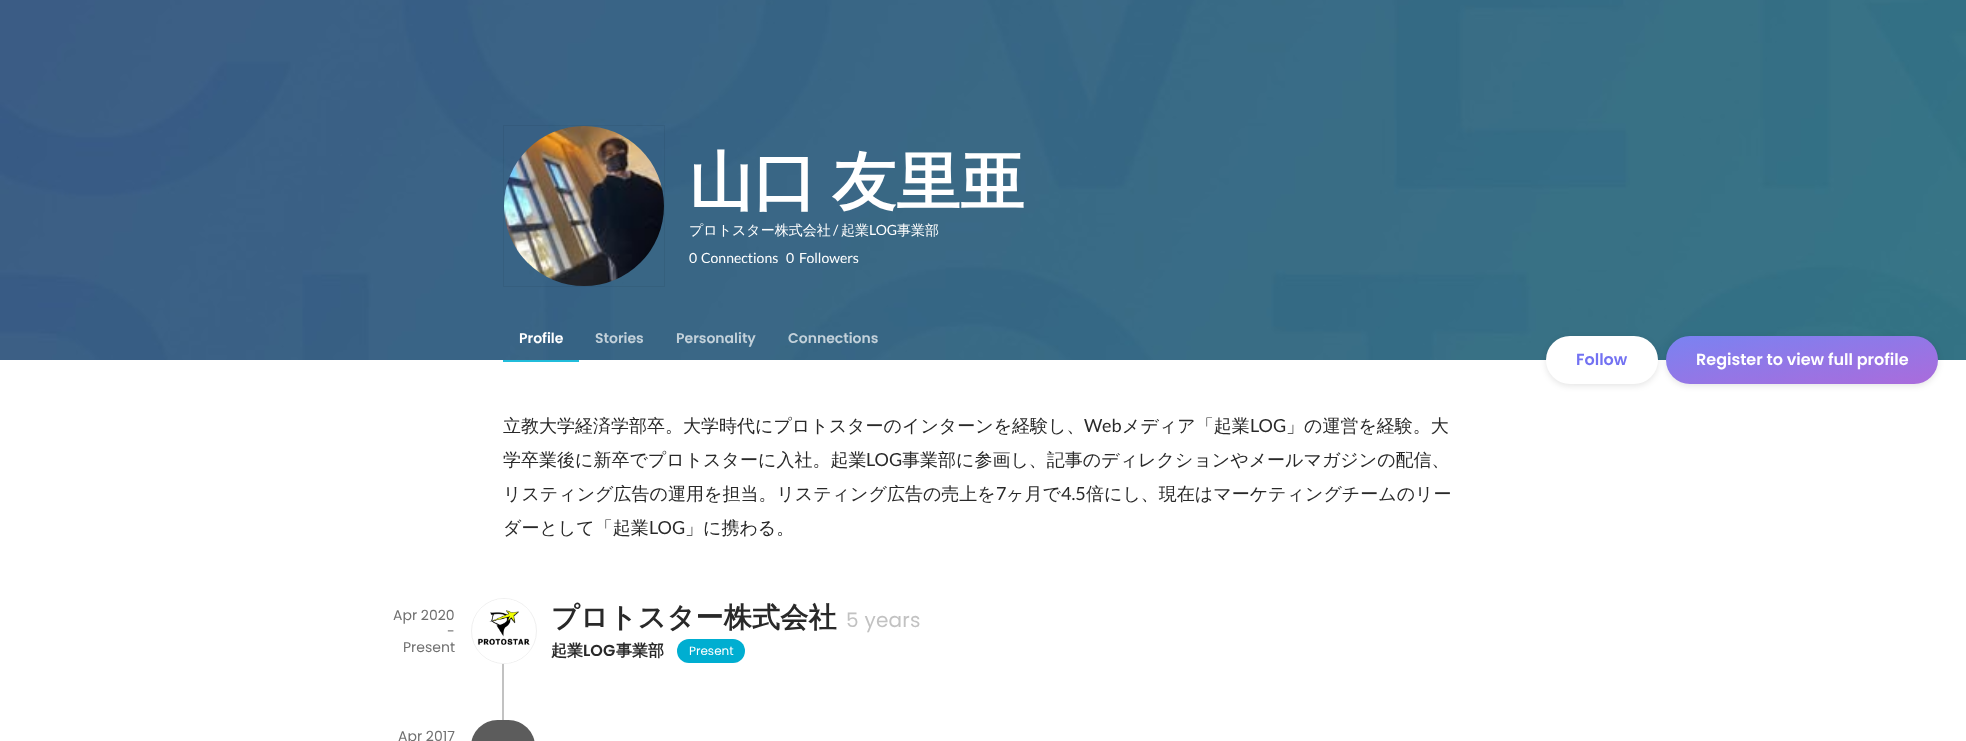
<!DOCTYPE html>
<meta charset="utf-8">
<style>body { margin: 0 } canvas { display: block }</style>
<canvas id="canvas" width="1966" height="741"></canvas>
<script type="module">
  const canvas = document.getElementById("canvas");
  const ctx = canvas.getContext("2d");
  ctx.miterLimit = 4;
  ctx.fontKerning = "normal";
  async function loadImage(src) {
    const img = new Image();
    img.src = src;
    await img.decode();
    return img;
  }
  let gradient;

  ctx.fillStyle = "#ffffff";
  ctx.fillRect(0, 0, 1966, 741);
  ctx.drawImage(await loadImage("img1.png"), 0, 0, 1966, 360);
  ctx.strokeStyle = "rgba(0, 0, 0, 0.06)";
  ctx.strokeRect(503.5, 125.5, 161, 161);
  ctx.drawImage(await loadImage("img2.png"), 504, 126, 160, 160);
  ctx.wordSpacing = "-4px";
  ctx.font = "bold 64px WenQuanYi Zen Hei";
  ctx.fillText("山口 友里亜", 689, 204);
  ctx.wordSpacing = "0px";
  ctx.font = "500 14px WenQuanYi Zen Hei";
  ctx.fillText("プロトスター株式会社", 689, 235);
  ctx.font = "14px Lato";
  ctx.fillText("/", 833, 235);
  ctx.font = "500 14px WenQuanYi Zen Hei";
  ctx.fillText("起業", 841, 235);
  ctx.font = "14px Lato";
  ctx.fillText("LOG", 869, 235);
  ctx.font = "500 14px WenQuanYi Zen Hei";
  ctx.fillText("事業部", 897, 235);
  ctx.font = "14px Lato";
  ctx.fillText("0", 689, 263);
  ctx.fillText("Connections", 701, 263);
  ctx.fillText("0", 786, 263);
  ctx.fillText("Followers", 799, 263);
  ctx.fillStyle = "#21bddb";
  ctx.fillRect(503, 360, 76, 2);
  ctx.font = "600 14px Poppins";
  ctx.fillStyle = "#ffffff";
  ctx.fillText("Profile", 519, 343);
  ctx.fillStyle = "#c3d1da";
  ctx.fillText("Stories", 595, 343);
  ctx.fillText("Personality", 676, 343);
  ctx.fillText("Connections", 788, 343);
  ctx.fillStyle = "rgba(0, 0, 0, 0.1)";
  ctx.filter = "blur(3px)";
  ctx.beginPath();
  ctx.roundRect(1546, 338, 112, 48, 24);
  ctx.fill();
  ctx.filter = "none";
  ctx.fillStyle = "#ffffff";
  ctx.beginPath();
  ctx.roundRect(1546, 336, 112, 48, 24);
  ctx.fill();
  ctx.font = "600 16px Poppins";
  ctx.fillStyle = "#7372f2";
  ctx.fillText("Follow", 1576, 365);
  ctx.fillStyle = "rgba(0, 0, 0, 0.1)";
  ctx.filter = "blur(3px)";
  ctx.beginPath();
  ctx.roundRect(1666, 338, 272, 48, 24);
  ctx.fill();
  ctx.filter = "none";
  gradient = ctx.createLinearGradient(1794, 313, 1810, 407);
  gradient.addColorStop(0, "#7983f2");
  gradient.addColorStop(1, "#ab6bdb");
  ctx.fillStyle = gradient;
  ctx.beginPath();
  ctx.roundRect(1666, 336, 272, 48, 24);
  ctx.fill();
  ctx.fillStyle = "#ffffff";
  ctx.fillText("Register to view full profile", 1696, 365);
  ctx.font = "500 18px WenQuanYi Zen Hei";
  ctx.fillStyle = "#292929";
  ctx.fillText("立教大学経済学部卒。大学時代にプロトスターのインターンを経験し、", 503, 432);
  ctx.font = "18px Lato";
  ctx.fillText("Web", 1084, 432);
  ctx.font = "500 18px WenQuanYi Zen Hei";
  ctx.fillText("メディア「起業", 1122, 432);
  ctx.font = "18px Lato";
  ctx.fillText("LOG", 1250, 432);
  ctx.font = "500 18px WenQuanYi Zen Hei";
  ctx.fillText("」の運営を経験。大", 1286, 432);
  ctx.fillText("学卒業後に新卒でプロトスターに入社。起業", 503, 466);
  ctx.font = "18px Lato";
  ctx.fillText("LOG", 866, 466);
  ctx.font = "500 18px WenQuanYi Zen Hei";
  ctx.fillText("事業部に参画し、記事のディレクションやメールマガジンの配信、", 902, 466);
  ctx.fillText("リスティング広告の運用を担当。リスティング広告の売上を", 503, 500);
  ctx.font = "18px Lato";
  ctx.fillText("7", 996, 500);
  ctx.font = "500 18px WenQuanYi Zen Hei";
  ctx.fillText("ヶ月で", 1006, 500);
  ctx.font = "18px Lato";
  ctx.fillText("4.5", 1061, 500);
  ctx.font = "500 18px WenQuanYi Zen Hei";
  ctx.fillText("倍にし、現在はマーケティングチームのリー", 1086, 500);
  ctx.fillText("ダーとして「起業", 503, 534);
  ctx.font = "18px Lato";
  ctx.fillText("LOG", 649, 534);
  ctx.font = "500 18px WenQuanYi Zen Hei";
  ctx.fillText("」に携わる。", 685, 534);
  ctx.font = "14px Poppins";
  ctx.fillStyle = "#707070";
  ctx.fillText("Apr 2020", 393, 620);
  ctx.fillText("-", 447, 636);
  ctx.fillText("Present", 403, 652);
  ctx.beginPath();
  ctx.arc(504, 631, 32.5, 0, Math.PI * 2);
  ctx.strokeStyle = "#f0f0f0";
  ctx.stroke();
  ctx.drawImage(await loadImage("img3.png"), 474, 599, 56, 64);
  ctx.letterSpacing = "0.25px";
  ctx.font = "bold 28px WenQuanYi Zen Hei";
  ctx.fillStyle = "#292929";
  ctx.fillText("プロトスター株式会社", 551, 627);
  ctx.font = "20px Poppins";
  ctx.fillStyle = "#c2c2c2";
  ctx.fillText("5 years", 846, 627);
  ctx.letterSpacing = "0px";
  ctx.font = "bold 16px WenQuanYi Zen Hei";
  ctx.fillStyle = "#292929";
  ctx.fillText("起業", 551, 656);
  ctx.font = "600 16px Poppins";
  ctx.fillText("LOG", 583, 656);
  ctx.font = "bold 16px WenQuanYi Zen Hei";
  ctx.fillText("事業部", 616, 656);
  ctx.fillStyle = "#00aed1";
  ctx.beginPath();
  ctx.roundRect(677, 639, 68, 24, 12);
  ctx.fill();
  ctx.font = "12px Poppins";
  ctx.fillStyle = "#ffffff";
  ctx.fillText("Present", 689, 655);
  ctx.fillStyle = "#c2c2c2";
  ctx.fillRect(502, 664, 2, 56);
  ctx.font = "14px Poppins";
  ctx.fillStyle = "#707070";
  ctx.fillText("Apr 2017", 398, 741);
  ctx.fillStyle = "#5c5c5c";
  ctx.beginPath();
  ctx.roundRect(471, 720, 64, 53, 32);
  ctx.fill();
</script>
